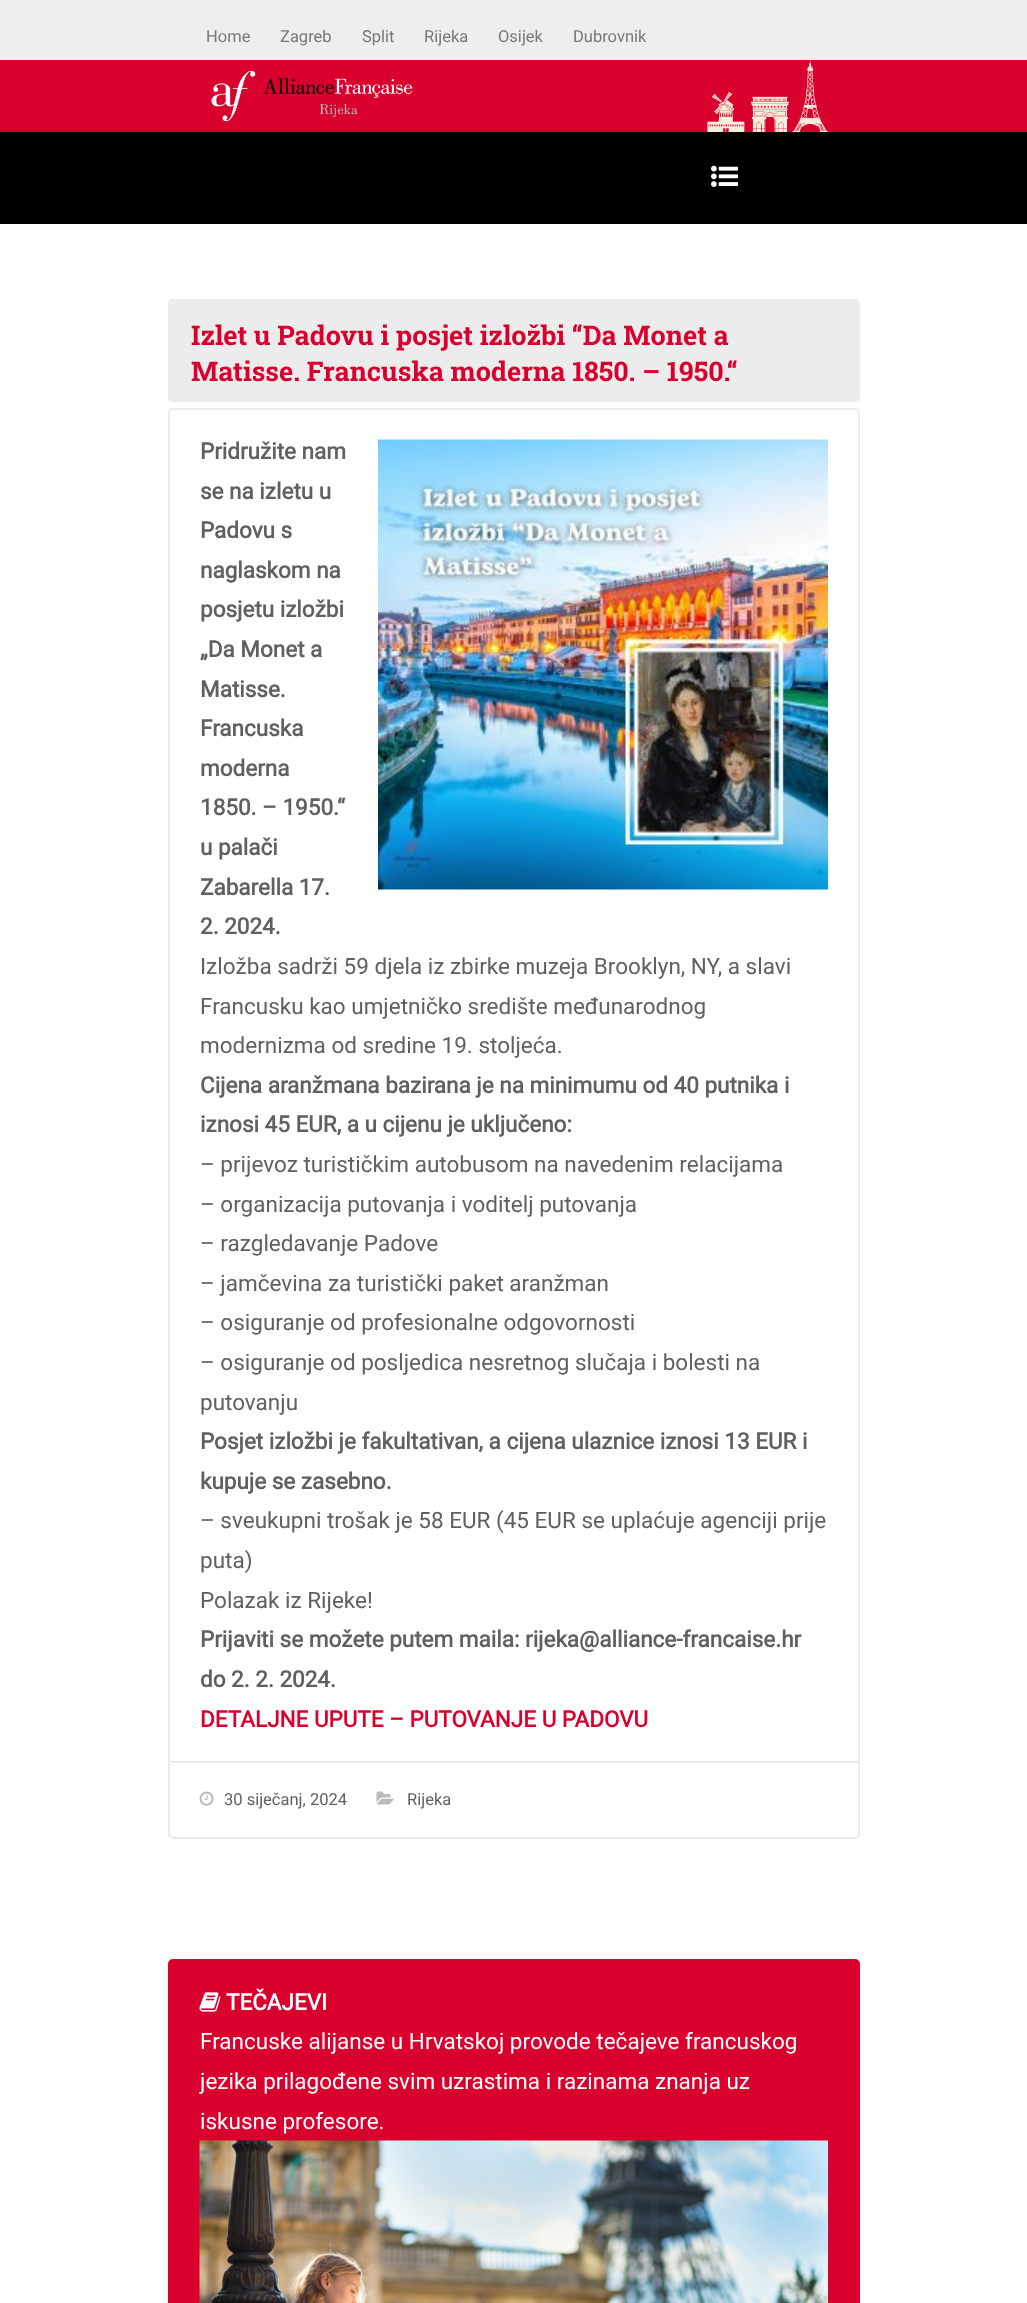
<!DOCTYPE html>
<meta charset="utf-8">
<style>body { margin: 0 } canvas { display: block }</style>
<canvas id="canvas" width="1027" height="2303"></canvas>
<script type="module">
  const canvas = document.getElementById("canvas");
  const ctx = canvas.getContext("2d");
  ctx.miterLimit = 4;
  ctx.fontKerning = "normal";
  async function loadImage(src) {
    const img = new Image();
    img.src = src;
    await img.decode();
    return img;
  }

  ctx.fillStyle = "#ffffff";
  ctx.fillRect(0, 0, 1027, 2303);
  ctx.fillStyle = "#eeeeee";
  ctx.fillRect(0, 0, 1027, 60);
  ctx.font = "16.5px Roboto";
  ctx.fillStyle = "#777777";
  ctx.fillText("Home", 206, 42);
  ctx.fillText("Zagreb", 280, 42);
  ctx.fillText("Split", 362, 42);
  ctx.fillText("Rijeka", 424, 42);
  ctx.fillText("Osijek", 498, 42);
  ctx.fillText("Dubrovnik", 573, 42);
  ctx.fillStyle = "#da002e";
  ctx.fillRect(0, 60, 1027, 72);
  ctx.drawImage(await loadImage("img1.png"), 211, 60, 617, 72);
  ctx.fillStyle = "#000000";
  ctx.fillRect(0, 132, 1027, 92);
  ctx.drawImage(await loadImage("img2.png"), 711, 165, 27, 22);
  ctx.fillStyle = "#ececec";
  ctx.beginPath();
  ctx.roundRect(168, 299, 692, 103, 5);
  ctx.fill();
  ctx.font = "bold 27px Roboto Slab";
  ctx.fillStyle = "#da002e";
  ctx.fillText("Izlet u Padovu i posjet izložbi “Da Monet a", 191, 345);
  ctx.fillText("Matisse. Francuska moderna 1850. – 1950.“", 191, 381);
  ctx.beginPath();
  ctx.roundRect(169, 409, 690, 1429, 4);
  ctx.strokeStyle = "#ececec";
  ctx.lineWidth = 2;
  ctx.stroke();
  ctx.font = "bold 22.5px Roboto";
  ctx.fillStyle = "#606060";
  ctx.fillText("Pridružite nam", 200, 459);
  ctx.drawImage(await loadImage("img3.png"), 378, 439, 450, 451);
  ctx.fillText("se na izletu u", 200, 499);
  ctx.fillText("Padovu s", 200, 538);
  ctx.fillText("naglaskom na", 200, 578);
  ctx.fillText("posjetu izložbi", 200, 617);
  ctx.fillText("„Da Monet a", 200, 657);
  ctx.fillText("Matisse.", 200, 697);
  ctx.fillText("Francuska", 200, 736);
  ctx.fillText("moderna", 200, 776);
  ctx.fillText("1850. – 1950.“", 200, 815);
  ctx.fillText("u palači", 200, 855);
  ctx.fillText("Zabarella 17.", 200, 895);
  ctx.fillText("2. 2024.", 200, 934);
  ctx.font = "22.5px Roboto";
  ctx.fillText("Izložba sadrži 59 djela iz zbirke muzeja Brooklyn, NY, a slavi", 200, 974);
  ctx.fillText("Francusku kao umjetničko središte međunarodnog", 200, 1014);
  ctx.fillText("modernizma od sredine 19. stoljeća.", 200, 1053);
  ctx.font = "bold 22.5px Roboto";
  ctx.fillText("Cijena aranžmana bazirana je na minimumu od 40 putnika i", 200, 1093);
  ctx.fillText("iznosi 45 EUR, a u cijenu je uključeno:", 200, 1132);
  ctx.font = "22.5px Roboto";
  ctx.fillText("– prijevoz turističkim autobusom na navedenim relacijama", 200, 1172);
  ctx.fillText("– organizacija putovanja i voditelj putovanja", 200, 1212);
  ctx.fillText("– razgledavanje Padove", 200, 1251);
  ctx.fillText("– jamčevina za turistički paket aranžman", 200, 1291);
  ctx.fillText("– osiguranje od profesionalne odgovornosti", 200, 1330);
  ctx.fillText("– osiguranje od posljedica nesretnog slučaja i bolesti na", 200, 1370);
  ctx.fillText("putovanju", 200, 1410);
  ctx.font = "bold 22.5px Roboto";
  ctx.fillText("Posjet izložbi je fakultativan, a cijena ulaznice iznosi 13 EUR i", 200, 1449);
  ctx.fillText("kupuje se zasebno.", 200, 1489);
  ctx.font = "22.5px Roboto";
  ctx.fillText("– sveukupni trošak je 58 EUR (45 EUR se uplaćuje agenciji prije", 200, 1528);
  ctx.fillText("puta)", 200, 1568);
  ctx.fillText("Polazak iz Rijeke!", 200, 1608);
  ctx.font = "bold 22.5px Roboto";
  ctx.fillText("Prijaviti se možete putem maila: rijeka@alliance-francaise.hr", 200, 1647);
  ctx.fillText("do 2. 2. 2024.", 200, 1687);
  ctx.fillStyle = "#da002e";
  ctx.fillText("DETALJNE UPUTE – PUTOVANJE U PADOVU", 200, 1727);
  ctx.fillStyle = "#ececec";
  ctx.fillRect(170, 1761, 688, 2);
  ctx.drawImage(await loadImage("img4.png"), 199, 1791, 15, 15);
  ctx.font = "16.5px Roboto";
  ctx.fillStyle = "#606060";
  ctx.fillText("30 siječanj, 2024", 224, 1805);
  ctx.drawImage(await loadImage("img5.png"), 376, 1791, 18, 14);
  ctx.fillText("Rijeka", 407, 1805);
  ctx.fillStyle = "#da002e";
  ctx.beginPath();
  ctx.roundRect(169, 1960, 690, 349, 4);
  ctx.fill();
  ctx.strokeStyle = "#da002e";
  ctx.stroke();
  ctx.drawImage(await loadImage("img6.png"), 199, 1992, 22, 20);
  ctx.font = "bold 22.5px Roboto";
  ctx.fillStyle = "#ffffff";
  ctx.fillText("TEČAJEVI", 226, 2010);
  ctx.font = "22.5px Roboto";
  ctx.fillText("Francuske alijanse u Hrvatskoj provode tečajeve francuskog", 200, 2049);
  ctx.fillText("jezika prilagođene svim uzrastima i razinama znanja uz", 200, 2089);
  ctx.fillText("iskusne profesore.", 200, 2129);
  ctx.drawImage(await loadImage("img7.png"), 199, 2140, 629, 163);
</script>
